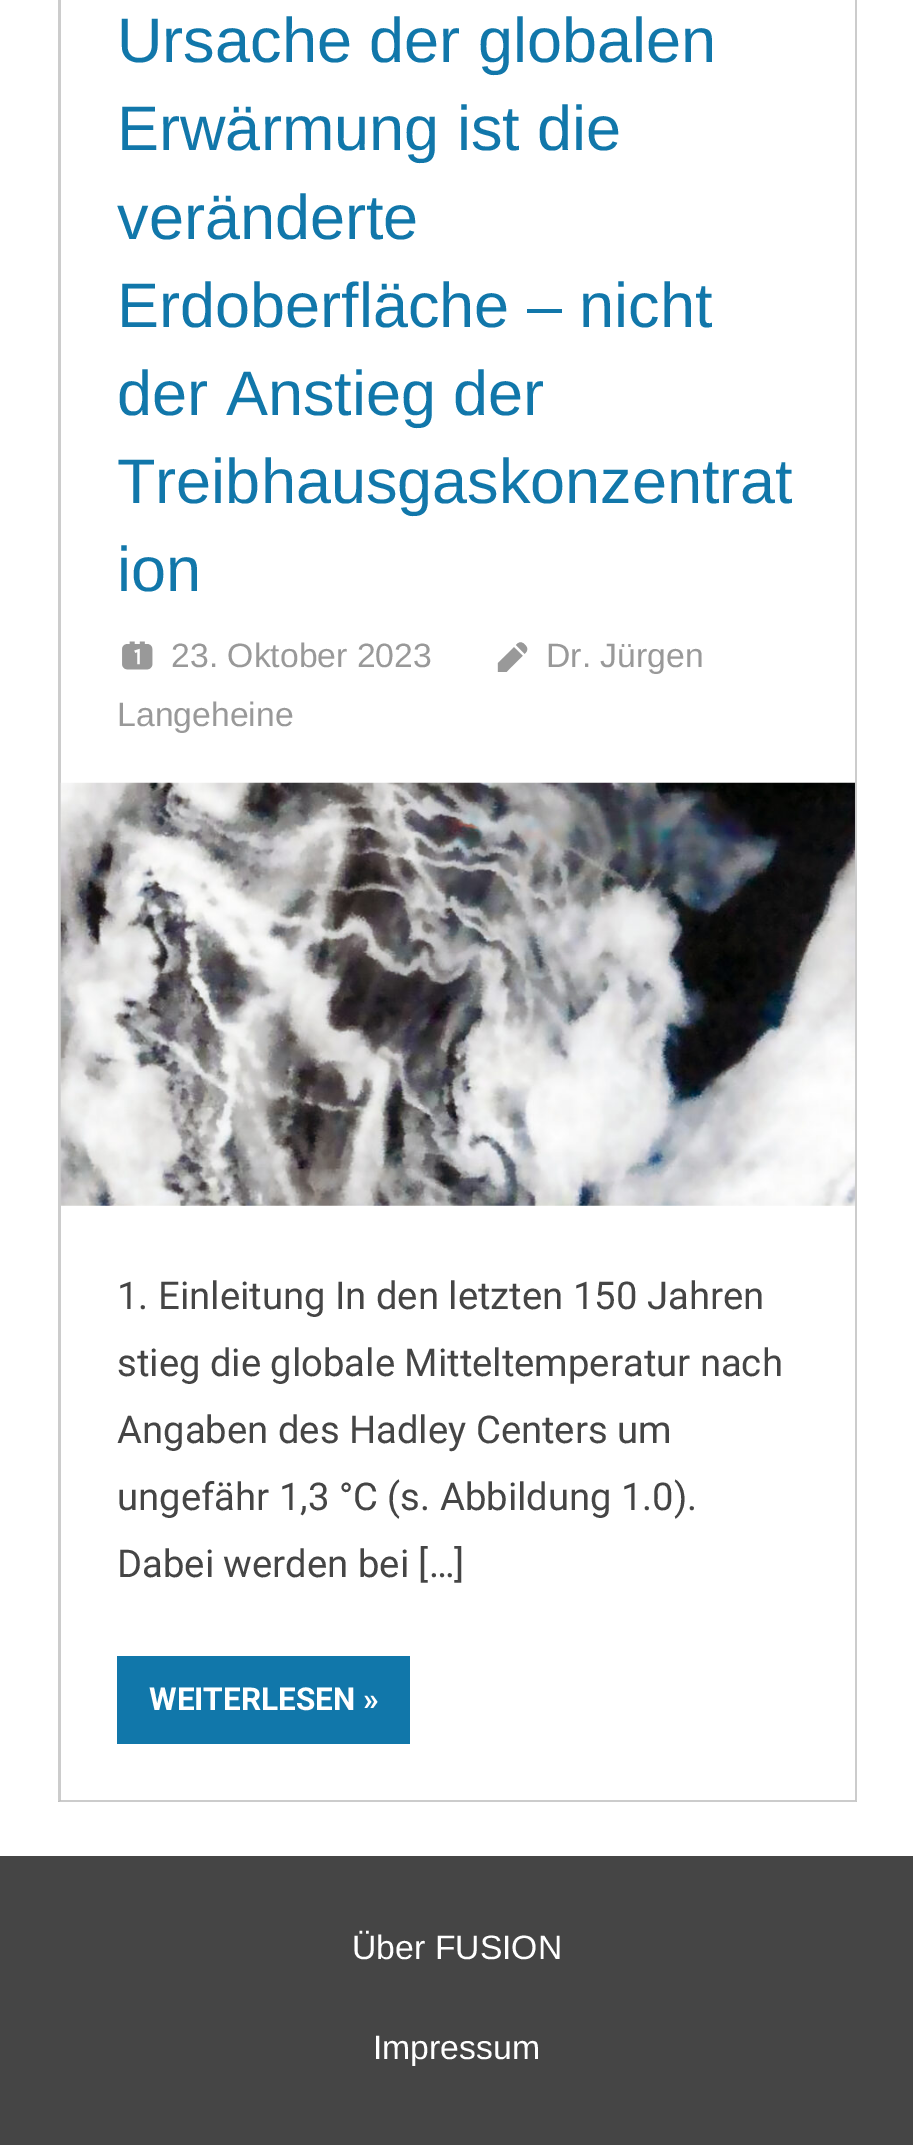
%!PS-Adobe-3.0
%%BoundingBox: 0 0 913 2145
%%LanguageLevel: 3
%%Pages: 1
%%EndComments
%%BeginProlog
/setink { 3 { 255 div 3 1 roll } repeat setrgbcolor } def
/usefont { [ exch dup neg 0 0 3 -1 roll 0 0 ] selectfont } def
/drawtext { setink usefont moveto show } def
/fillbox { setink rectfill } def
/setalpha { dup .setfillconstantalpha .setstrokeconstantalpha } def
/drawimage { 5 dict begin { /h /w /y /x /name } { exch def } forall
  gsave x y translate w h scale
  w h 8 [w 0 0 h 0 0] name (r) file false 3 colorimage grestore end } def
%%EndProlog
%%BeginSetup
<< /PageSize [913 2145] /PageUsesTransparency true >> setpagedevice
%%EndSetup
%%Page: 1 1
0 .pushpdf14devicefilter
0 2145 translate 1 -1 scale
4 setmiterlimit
0 0 913 2145 255 255 255 fillbox
204 204 204 setink
857 -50 moveto 857 1802 lineto 855 1800 lineto 855 -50 lineto closepath fill
0.2 setalpha
0 0 0 setink
857 1802 moveto 58 1802 lineto 61 1800 lineto 855 1800 lineto closepath fill
58 1802 moveto 58 -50 lineto 61 -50 lineto 61 1800 lineto closepath fill
1 setalpha
(Ursache der globalen) 117 62 /LiberationSans-Regular 63 17 119 170 drawtext
(Erwärmung ist die) 117 150 /LiberationSans-Regular 63 17 119 170 drawtext
(veränderte) 117 239 /LiberationSans-Regular 63 17 119 170 drawtext
(Erdoberfläche – nicht) 117 327 /LiberationSans-Regular 63 17 119 170 drawtext
(der Anstieg der) 117 415 /LiberationSans-Regular 63 17 119 170 drawtext
(Treibhausgaskonzentrat) 117 503 /LiberationSans-Regular 63 17 119 170 drawtext
(ion) 117 591 /LiberationSans-Regular 63 17 119 170 drawtext
(assets/img1.rgb) 122 641 31 29 drawimage
(23. Oktober 2023) 171 667 /LiberationSans-Regular 33.75 153 153 153 drawtext
(assets/img2.rgb) 497 642 31 30 drawimage
(Dr. Jürgen) 546 667 /LiberationSans-Regular 33.75 153 153 153 drawtext
(Langeheine) 117 726 /LiberationSans-Regular 33.75 153 153 153 drawtext
(assets/img3.rgb) 60 782 795 424 drawimage
(1. Einleitung In den letzten 150 Jahren) 117 1309 /Roboto-Regular 38.25 69 69 69 drawtext
(stieg die globale Mitteltemperatur nach) 117 1376 /Roboto-Regular 38.25 69 69 69 drawtext
(Angaben des Hadley Centers um) 117 1443 /Roboto-Regular 38.25 69 69 69 drawtext
(ungefähr 1,3 °C \(s. Abbildung 1.0\).) 117 1510 /Roboto-Regular 38.25 69 69 69 drawtext
(Dabei werden bei […]) 117 1577 /Roboto-Regular 38.25 69 69 69 drawtext
117 1656 293 88 17 119 170 fillbox
(WEITERLESEN ») 149 1710 /Roboto-Bold 31.5 255 255 255 drawtext
0 1856 913 289 69 69 69 fillbox
(Über FUSION) 352 1959 /LiberationSans-Regular 33.75 255 255 255 drawtext
(Impressum) 373 2059 /LiberationSans-Regular 33.75 255 255 255 drawtext
.poppdf14devicefilter showpage
%%EOF
